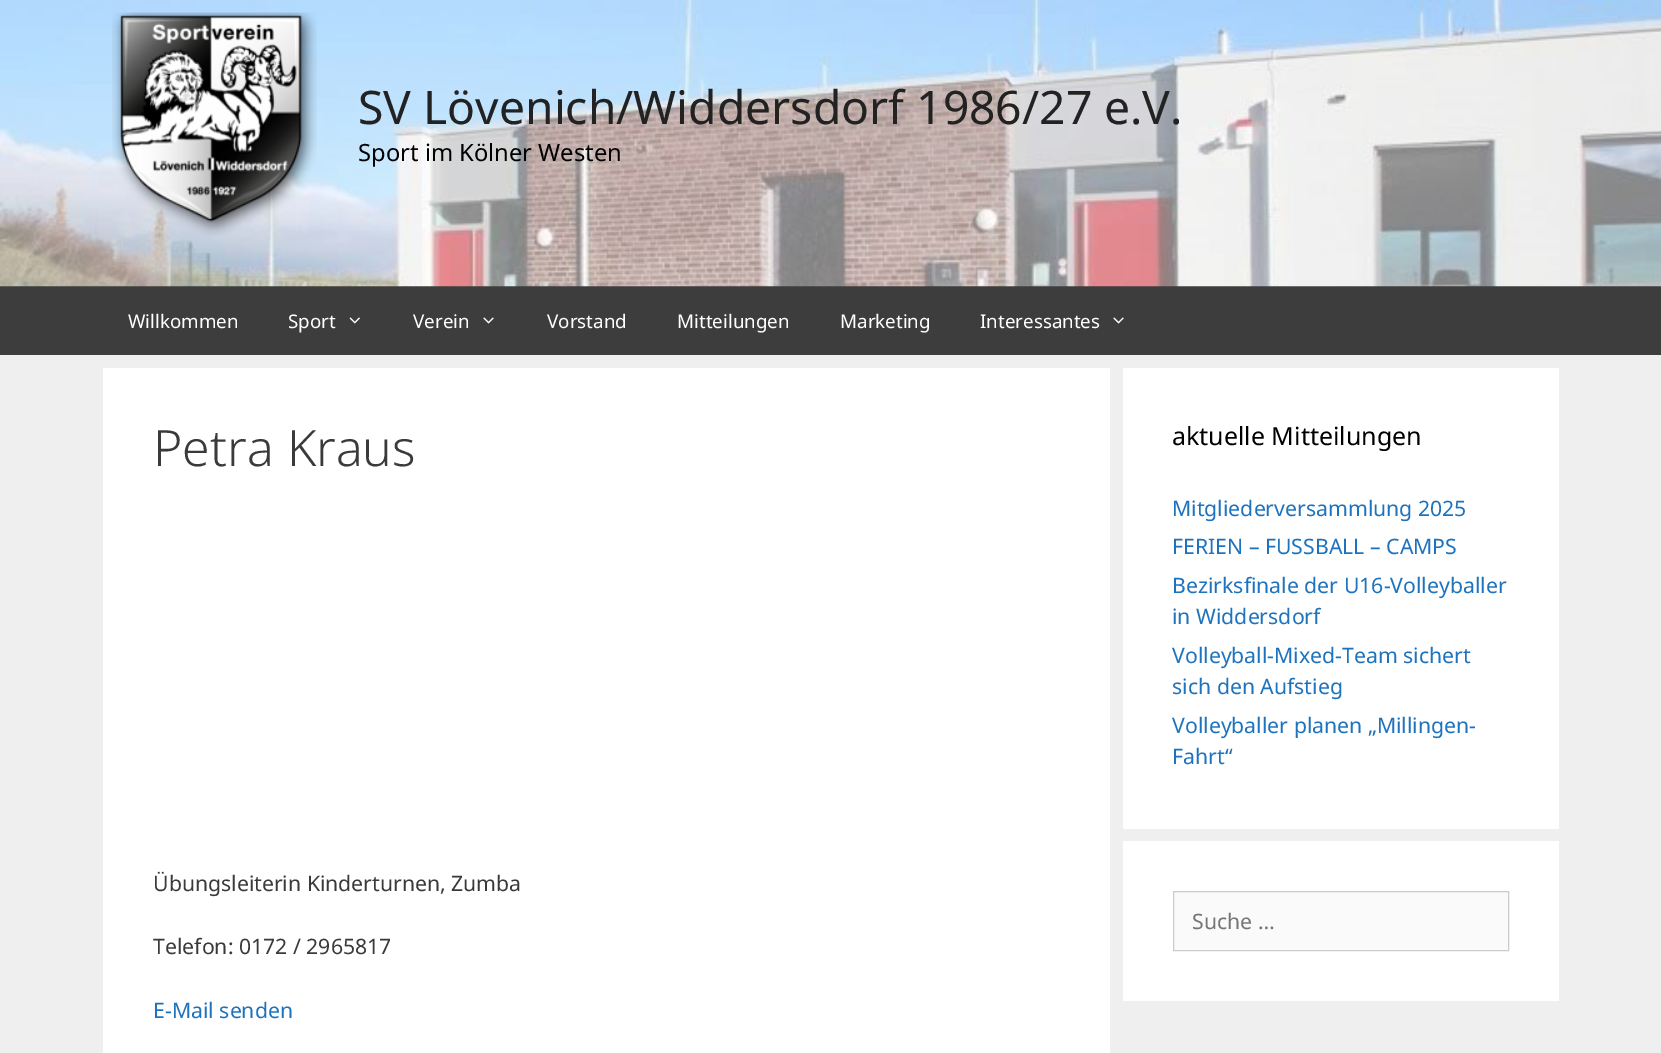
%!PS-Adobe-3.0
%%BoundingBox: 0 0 1661 1053
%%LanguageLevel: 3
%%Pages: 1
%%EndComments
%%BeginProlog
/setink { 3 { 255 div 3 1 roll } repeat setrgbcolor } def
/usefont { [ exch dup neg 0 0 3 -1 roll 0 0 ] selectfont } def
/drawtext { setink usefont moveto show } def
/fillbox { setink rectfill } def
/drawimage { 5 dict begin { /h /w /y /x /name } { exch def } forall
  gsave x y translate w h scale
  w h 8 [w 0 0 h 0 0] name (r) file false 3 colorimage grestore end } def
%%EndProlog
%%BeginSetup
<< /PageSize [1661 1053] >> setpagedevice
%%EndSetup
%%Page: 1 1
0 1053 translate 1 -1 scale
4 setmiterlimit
0 0 1661 1053 239 239 239 fillbox
0 286 1661 69 61 61 61 fillbox
(assets/img1.rgb) 0 0 1661 287 drawimage
(assets/img2.rgb) 112 12 205 224 drawimage
(SV Lövenich/Widdersdorf 1986/27 e.V.) 358 124 /NotoSans-Regular 46.25 34 34 34 drawtext
(Sport im Kölner Westen) 358 161 /NotoSans-Regular 23.75 0 0 0 drawtext
(Willkommen) 128 328 /NotoSans-Regular 18.75 255 255 255 drawtext
(Sport) 288 328 /NotoSans-Regular 18.75 255 255 255 drawtext
(assets/img3.rgb) 349 317 11 7 drawimage
(Verein) 413 328 /NotoSans-Regular 18.75 255 255 255 drawtext
(assets/img4.rgb) 483 317 11 7 drawimage
(Vorstand) 547 328 /NotoSans-Regular 18.75 255 255 255 drawtext
(Mitteilungen) 677 328 /NotoSans-Regular 18.75 255 255 255 drawtext
(Marketing) 840 328 /NotoSans-Regular 18.75 255 255 255 drawtext
(Interessantes) 980 328 /NotoSans-Regular 18.75 255 255 255 drawtext
(assets/img4.rgb) 1113 317 11 7 drawimage
103 368 1007 685 255 255 255 fillbox
(Petra Kraus) 153 466 /NotoSans-Light 50 58 58 58 drawtext
(Übungsleiterin Kinderturnen, Zumba) 153 891 /NotoSans-Regular 21.25 58 58 58 drawtext
(Telefon: 0172 / 2965817) 153 954 /NotoSans-Regular 21.25 58 58 58 drawtext
(E-Mail senden) 153 1018 /NotoSans-Regular 21.25 30 115 190 drawtext
1123 368 436 461 255 255 255 fillbox
(aktuelle Mitteilungen) 1172 445 /NotoSans-Regular 25 0 0 0 drawtext
(Mitgliederversammlung 2025) 1172 516 /NotoSans-Regular 21.25 30 115 190 drawtext
(FERIEN – FUSSBALL – CAMPS) 1172 554 /NotoSans-Regular 21.25 30 115 190 drawtext
(Bezirksfinale der U16-Volleyballer) 1172 593 /NotoSans-Regular 21.25 30 115 190 drawtext
(in Widdersdorf) 1172 624 /NotoSans-Regular 21.25 30 115 190 drawtext
(Volleyball-Mixed-Team sichert) 1172 663 /NotoSans-Regular 21.25 30 115 190 drawtext
(sich den Aufstieg) 1172 694 /NotoSans-Regular 21.25 30 115 190 drawtext
(Volleyballer planen „Millingen-) 1172 733 /NotoSans-Regular 21.25 30 115 190 drawtext
(Fahrt“) 1172 764 /NotoSans-Regular 21.25 30 115 190 drawtext
1123 841 436 160 255 255 255 fillbox
250 250 250 setink
1173.5 891.5 moveto 1508.5 891.5 lineto 1508.5 950.5 lineto 1173.5 950.5 lineto closepath gsave fill grestore
204 204 204 setink
stroke
(Suche …) 1192 929 /NotoSans-Regular 21.25 117 117 117 drawtext
showpage
%%EOF
